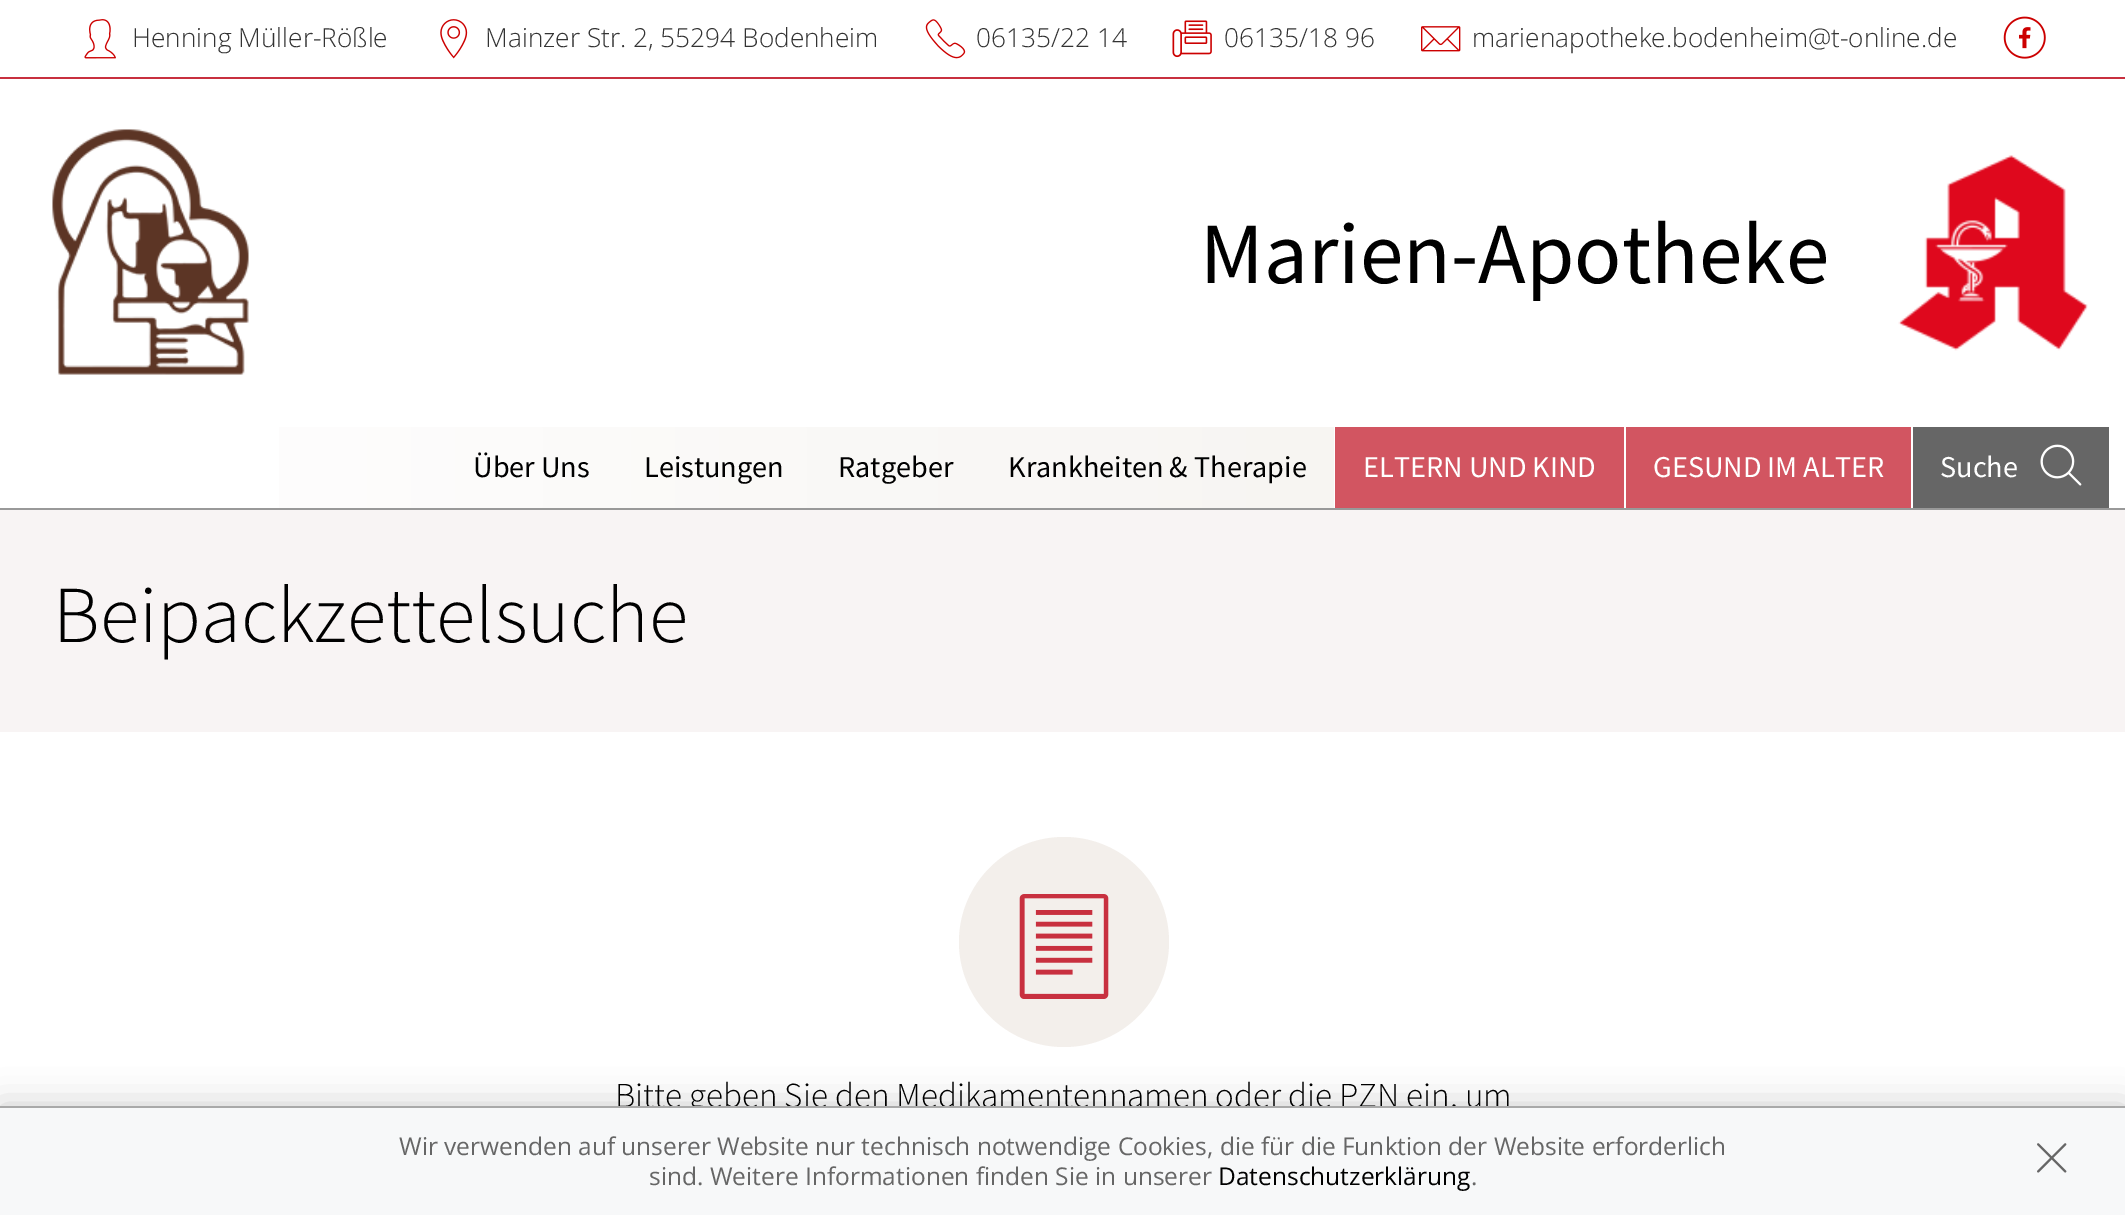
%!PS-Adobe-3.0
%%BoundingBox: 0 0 2125 1215
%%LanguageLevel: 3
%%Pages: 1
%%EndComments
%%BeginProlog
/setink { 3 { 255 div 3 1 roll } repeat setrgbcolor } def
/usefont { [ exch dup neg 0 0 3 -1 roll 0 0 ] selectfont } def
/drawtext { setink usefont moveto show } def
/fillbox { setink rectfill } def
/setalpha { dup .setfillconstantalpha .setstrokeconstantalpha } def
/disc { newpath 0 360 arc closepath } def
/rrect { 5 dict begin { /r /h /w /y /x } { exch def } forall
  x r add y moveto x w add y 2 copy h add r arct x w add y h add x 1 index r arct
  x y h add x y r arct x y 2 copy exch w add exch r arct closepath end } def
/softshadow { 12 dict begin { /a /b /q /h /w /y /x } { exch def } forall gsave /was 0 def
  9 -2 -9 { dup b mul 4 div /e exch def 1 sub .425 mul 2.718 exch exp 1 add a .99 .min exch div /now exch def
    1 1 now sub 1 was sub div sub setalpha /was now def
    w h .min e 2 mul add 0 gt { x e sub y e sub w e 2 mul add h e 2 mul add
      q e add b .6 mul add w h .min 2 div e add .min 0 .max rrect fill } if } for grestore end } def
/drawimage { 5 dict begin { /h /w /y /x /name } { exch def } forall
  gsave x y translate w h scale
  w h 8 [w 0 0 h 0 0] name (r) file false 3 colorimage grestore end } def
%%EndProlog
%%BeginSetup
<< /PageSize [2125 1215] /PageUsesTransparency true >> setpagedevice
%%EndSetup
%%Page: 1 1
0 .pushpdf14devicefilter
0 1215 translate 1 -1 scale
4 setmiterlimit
0 0 2125 1215 255 255 255 fillbox
0 77 2125 2 200 48 63 fillbox
(assets/img1.rgb) 84 19 32 40 drawimage
(Henning Müller-Rößle) 132 47 /OpenSans-Light 26.25 51 51 51 drawtext
(assets/img2.rgb) 440 19 28 40 drawimage
(Mainzer Str. 2, 55294 Bodenheim) 485 47 /OpenSans-Light 26.25 51 51 51 drawtext
(assets/img3.rgb) 925 19 41 40 drawimage
(06135/22 14) 976 47 /OpenSans-Light 26.25 51 51 51 drawtext
(assets/img4.rgb) 1172 20 40 38 drawimage
(06135/18 96) 1224 47 /OpenSans-Light 26.25 51 51 51 drawtext
(assets/img5.rgb) 1421 26 40 26 drawimage
(marienapotheke.bodenheim@t-online.de) 1472 47 /OpenSans-Light 26.25 51 51 51 drawtext
(assets/img6.rgb) 2003 16 43 43 drawimage
(assets/img7.rgb) 52 129 197 246 drawimage
(assets/img8.rgb) 1898 155 190 196 drawimage
(Marien-Apotheke) 1200 283 /SourceSansPro-Regular 87.5 0 0 0 drawtext
gsave 279 427 moveto 1334 427 lineto 1334 508 lineto 279 508 lineto closepath clip newpath
<< /ShadingType 2 /ColorSpace /DeviceRGB /Coords [18 467 2109 467] /Extend [true true] /Function << /FunctionType 2 /Domain [0 1] /C0 [1 1 1] /C1 [0.953 0.937 0.922] /N 1 >> >> shfill grestore
(Über Uns) 473 477 /SourceSansPro-Regular 30.25 0 0 0 drawtext
(Leistungen) 644 477 /SourceSansPro-Regular 30.25 0 0 0 drawtext
(Ratgeber) 838 477 /SourceSansPro-Regular 30.25 0 0 0 drawtext
(Krankheiten & Therapie) 1008 477 /SourceSansPro-Regular 30.25 0 0 0 drawtext
1335 427 289 81 210 85 97 fillbox
(ELTERN UND KIND) 1363 477 /SourceSansPro-Regular 30.25 255 255 255 drawtext
1626 427 285 81 210 85 97 fillbox
(GESUND IM ALTER) 1653 477 /SourceSansPro-Regular 30.25 255 255 255 drawtext
1913 427 196 81 102 102 102 fillbox
(Suche) 1940 477 /SourceSansPro-Regular 30.25 255 255 255 drawtext
(assets/img9.rgb) 2040 444 42 42 drawimage
0 510 2125 222 248 244 244 fillbox
0 508 2125 2 153 153 153 fillbox
(Beipackzettelsuche) 53 642 /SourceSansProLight-Light 80.75 0 0 0 drawtext
243 239 235 setink
1064 942 105 disc fill
(assets/img10.rgb) 1019 894 90 105 drawimage
(Bitte geben Sie den Medikamentennamen oder die PZN ein, um) 615 1107 /SourceSansProLight-Light 35 0 0 0 drawtext
0 1106 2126 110 0 17.5 0.2 softshadow
0 1108 2125 107 247 248 249 fillbox
0 1106 2125 2 169 169 169 fillbox
(Wir verwenden auf unserer Website nur technisch notwendige Cookies, die für die Funktion der Website erforderlich) 399 1155 /OpenSans-Regular 24.5 102 102 102 drawtext
(sind. Weitere Informationen finden Sie in unserer) 649 1185 /OpenSans-Regular 24.5 102 102 102 drawtext
(Datenschutzerklärung) 1218 1185 /OpenSans-Regular 24.5 0 0 0 drawtext
(.) 1471 1185 /OpenSans-Regular 24.5 102 102 102 drawtext
(assets/img11.rgb) 2037 1143 30 30 drawimage
.poppdf14devicefilter showpage
%%EOF
